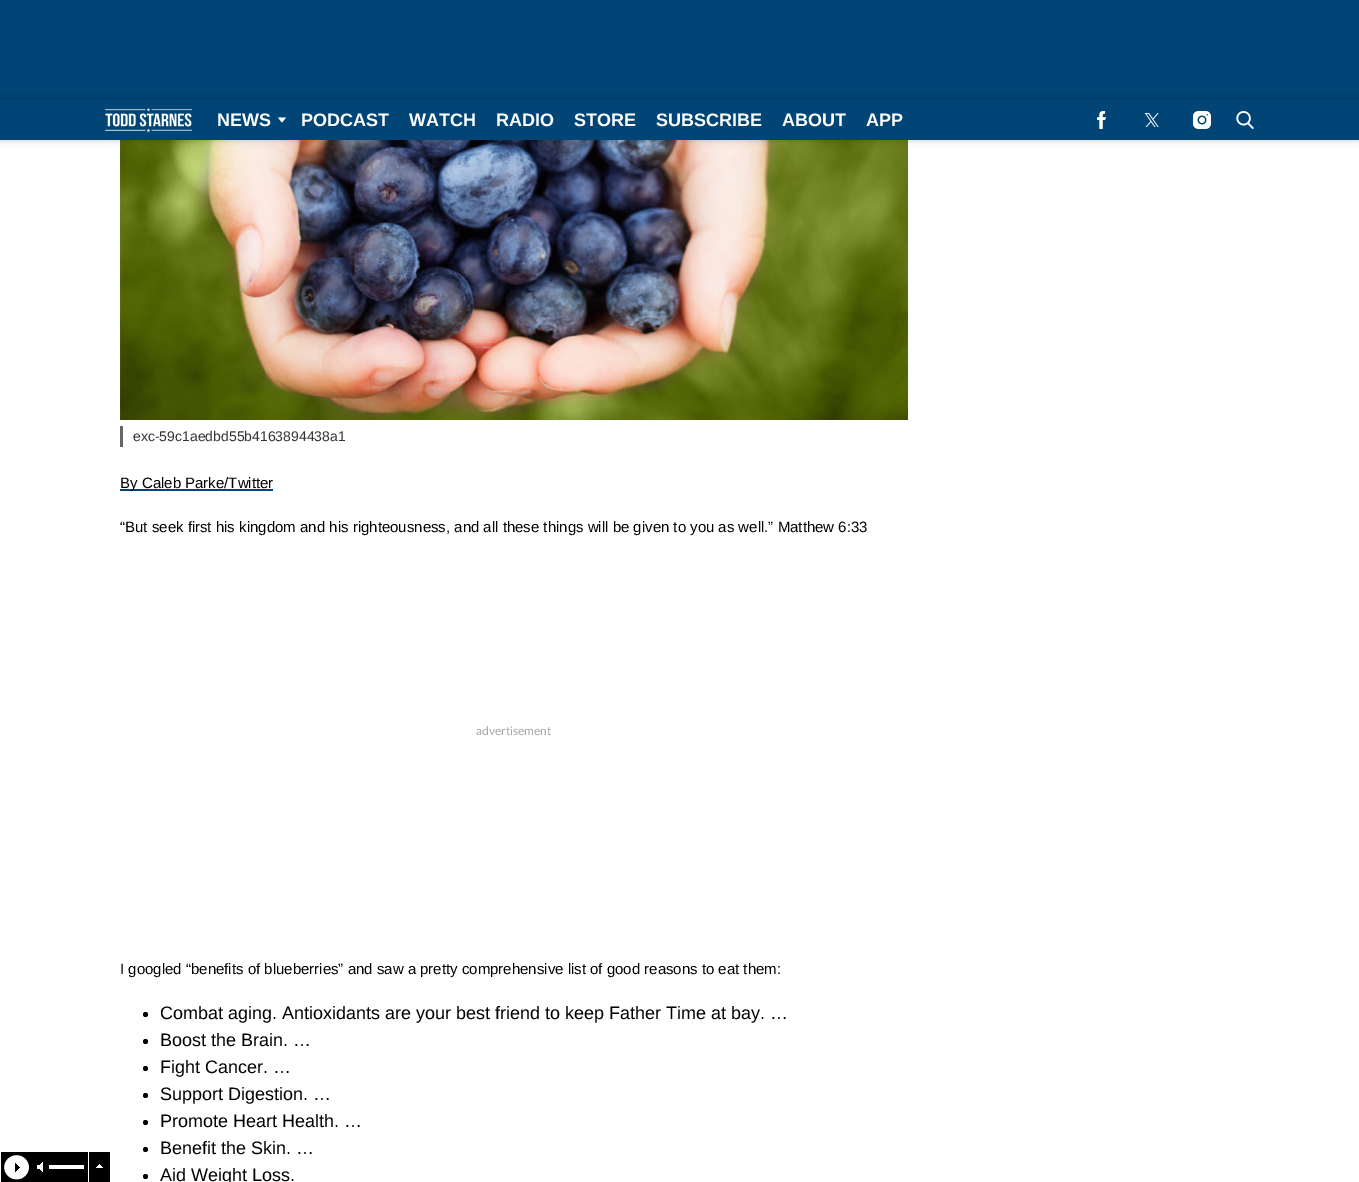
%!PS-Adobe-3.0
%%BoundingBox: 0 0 1359 1182
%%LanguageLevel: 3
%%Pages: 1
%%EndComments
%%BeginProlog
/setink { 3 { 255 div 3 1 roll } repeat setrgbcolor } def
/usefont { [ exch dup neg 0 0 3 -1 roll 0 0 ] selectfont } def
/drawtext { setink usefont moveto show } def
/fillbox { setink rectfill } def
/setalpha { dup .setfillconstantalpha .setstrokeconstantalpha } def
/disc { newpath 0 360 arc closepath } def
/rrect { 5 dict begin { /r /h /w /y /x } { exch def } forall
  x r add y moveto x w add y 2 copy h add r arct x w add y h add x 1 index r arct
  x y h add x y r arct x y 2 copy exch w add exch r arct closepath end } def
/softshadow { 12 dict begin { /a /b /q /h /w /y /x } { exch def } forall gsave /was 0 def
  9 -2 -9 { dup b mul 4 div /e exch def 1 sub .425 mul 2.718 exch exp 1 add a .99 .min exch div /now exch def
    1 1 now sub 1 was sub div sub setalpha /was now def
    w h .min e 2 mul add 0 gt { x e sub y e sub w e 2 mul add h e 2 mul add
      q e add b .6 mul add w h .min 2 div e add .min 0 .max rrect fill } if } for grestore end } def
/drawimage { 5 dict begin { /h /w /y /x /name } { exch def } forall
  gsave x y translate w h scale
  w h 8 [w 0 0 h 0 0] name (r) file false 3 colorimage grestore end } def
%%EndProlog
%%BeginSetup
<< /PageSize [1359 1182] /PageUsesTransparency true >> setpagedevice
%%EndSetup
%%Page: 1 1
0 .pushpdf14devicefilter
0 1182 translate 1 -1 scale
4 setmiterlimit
0 0 1359 1182 255 255 255 fillbox
0 0 1359 100 0 69 117 fillbox
(assets/img9.rgb) 120 140 788 280 drawimage
0 0 0 setink
0 100 1359 40 0 3.5 0.2 softshadow
0 100 1359 40 0 69 117 fillbox
(assets/img1.rgb) 105 107 87 26 drawimage
(NEWS) 217 126 /LiberationSans-Bold 18 255 255 255 drawtext
278 117.5 moveto 286 117.5 lineto 282 122.5 lineto closepath fill
(PODCAST) 301 126 /LiberationSans-Bold 18 255 255 255 drawtext
(WATCH) 409 126 /LiberationSans-Bold 18 255 255 255 drawtext
(RADIO) 496 126 /LiberationSans-Bold 18 255 255 255 drawtext
(STORE) 574 126 /LiberationSans-Bold 18 255 255 255 drawtext
(SUBSCRIBE) 656 126 /LiberationSans-Bold 18 255 255 255 drawtext
(ABOUT) 782 126 /LiberationSans-Bold 18 255 255 255 drawtext
(APP) 866 126 /LiberationSans-Bold 18 255 255 255 drawtext
(assets/img2.rgb) 1097 111 9 18 drawimage
(assets/img3.rgb) 1144 113 15 14 drawimage
(assets/img4.rgb) 1193 111 18 18 drawimage
(assets/img5.rgb) 1236 111 18 18 drawimage
1 1152 87 30 0 0 0 fillbox
(assets/img6.rgb) 4 1155 25 25 drawimage
(assets/img7.rgb) 37 1162 6 10 drawimage
49 1165 35 4 255 255 255 fillbox
89 1152 21 30 0 0 0 fillbox
(assets/img8.rgb) 96 1164 7 4 drawimage
120 426 3 21 102 102 102 fillbox
(exc-59c1aedbd55b4163894438a1) 133 441 /LiberationSans-Regular 14 51 51 51 drawtext
120 489 153 2 0 69 117 fillbox
(By Caleb Parke/Twitter) 120 488 /LiberationSans-Regular 15 0 0 0 drawtext
(“But seek first his kingdom and his righteousness, and all these things will be given to you as well.” Matthew 6:33) 120 532 /LiberationSans-Regular 15 0 0 0 drawtext
(advertisement) 476 735 /Lato-Regular 12 167 167 167 drawtext
(I googled “benefits of blueberries” and saw a pretty comprehensive list of good reasons to eat them:) 120 974 /LiberationSans-Regular 15 0 0 0 drawtext
145.5 1014.5 2.5 disc fill
(Combat aging. Antioxidants are your best friend to keep Father Time at bay. …) 160 1019 /LiberationSans-Regular 18 0 0 0 drawtext
145.5 1041.5 2.5 disc fill
(Boost the Brain. …) 160 1046 /LiberationSans-Regular 18 0 0 0 drawtext
145.5 1068.5 2.5 disc fill
(Fight Cancer. …) 160 1073 /LiberationSans-Regular 18 0 0 0 drawtext
145.5 1095.5 2.5 disc fill
(Support Digestion. …) 160 1100 /LiberationSans-Regular 18 0 0 0 drawtext
145.5 1122.5 2.5 disc fill
(Promote Heart Health. …) 160 1127 /LiberationSans-Regular 18 0 0 0 drawtext
145.5 1149.5 2.5 disc fill
(Benefit the Skin. …) 160 1154 /LiberationSans-Regular 18 0 0 0 drawtext
145.5 1176.5 2.5 disc fill
(Aid Weight Loss.) 160 1181 /LiberationSans-Regular 18 0 0 0 drawtext
.poppdf14devicefilter showpage
%%EOF
